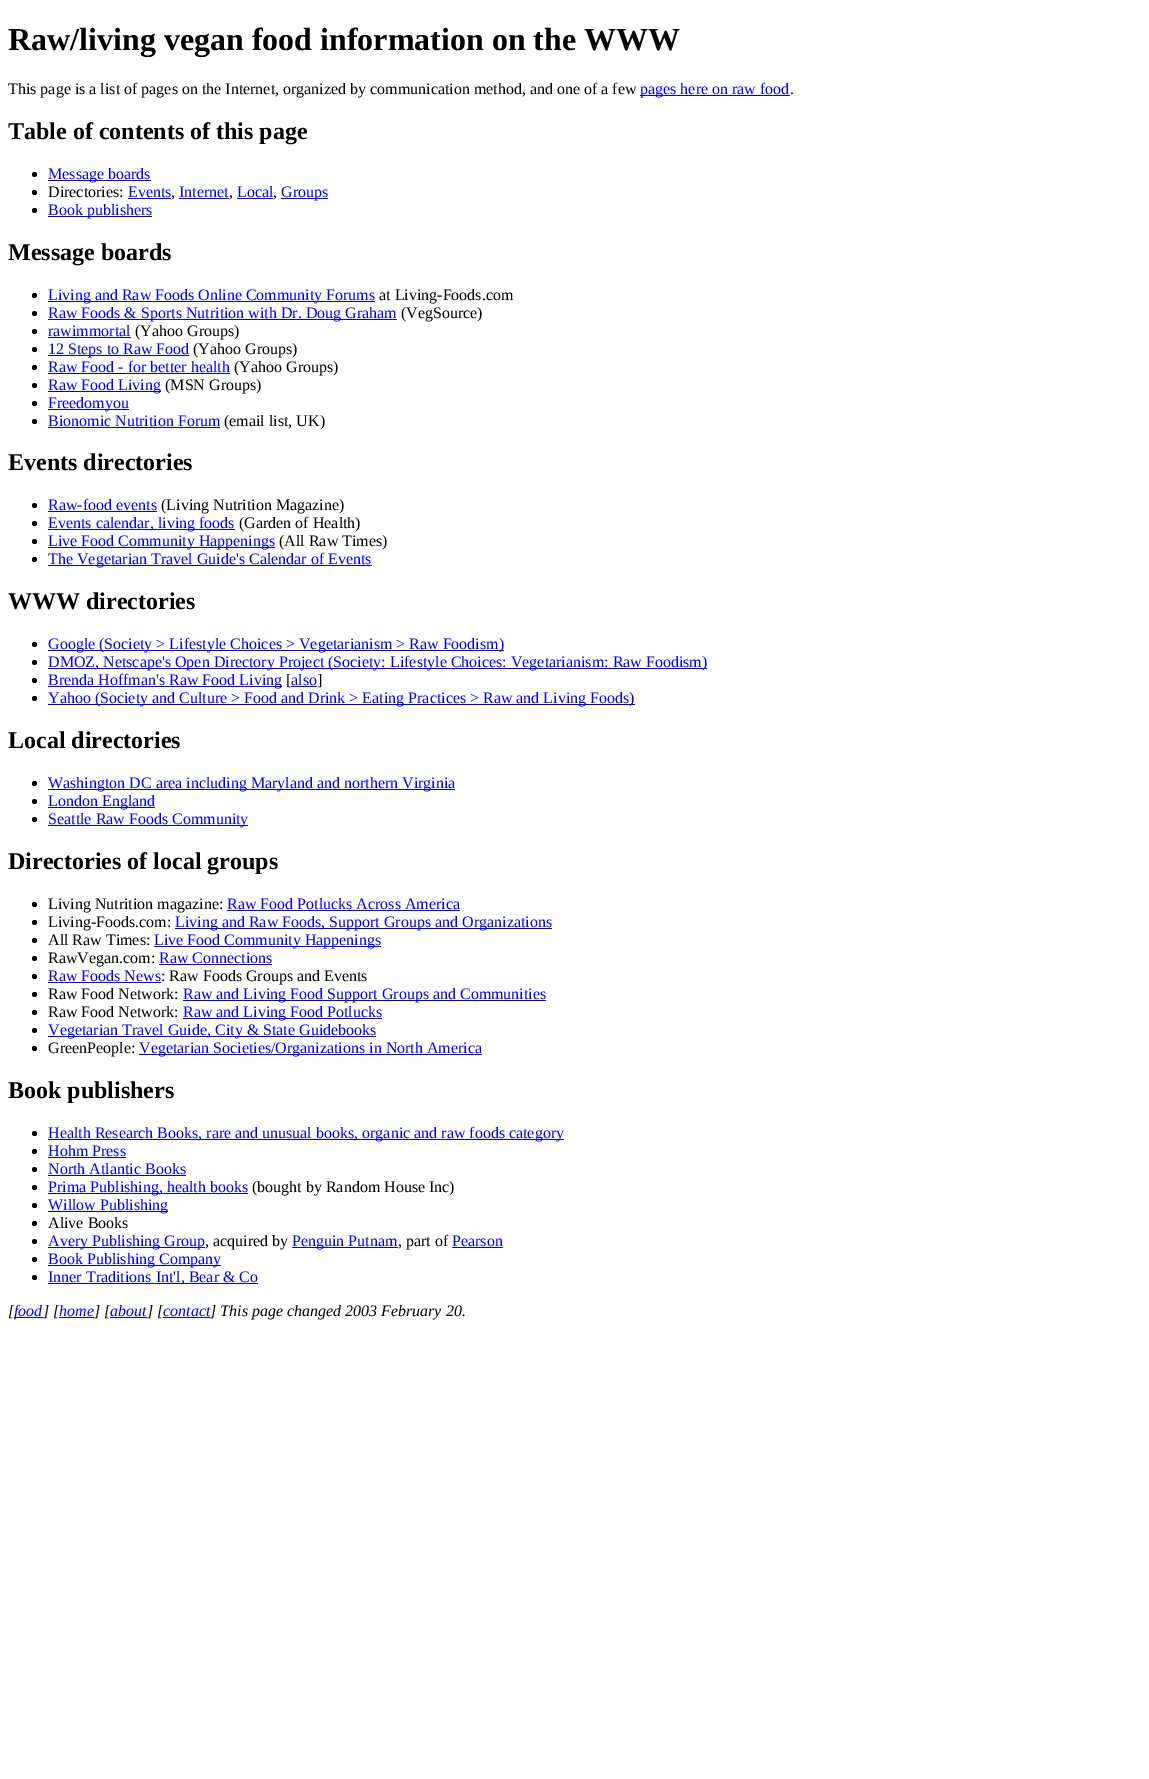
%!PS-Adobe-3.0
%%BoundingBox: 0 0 1149 1779
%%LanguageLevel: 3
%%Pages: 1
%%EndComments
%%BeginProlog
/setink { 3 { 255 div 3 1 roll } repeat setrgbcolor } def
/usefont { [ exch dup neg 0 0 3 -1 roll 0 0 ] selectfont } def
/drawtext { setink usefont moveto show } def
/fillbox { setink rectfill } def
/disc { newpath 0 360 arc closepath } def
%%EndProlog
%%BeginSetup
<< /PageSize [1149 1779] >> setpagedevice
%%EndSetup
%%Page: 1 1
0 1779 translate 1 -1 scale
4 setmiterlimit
0 0 1149 1779 255 255 255 fillbox
(Raw/living vegan food information on the WWW) 8 50 /LiberationSerif-Bold 32 0 0 0 drawtext
(This page is a list of pages on the Internet, organized by communication method, and one of a few) 8 94 /LiberationSerif-Regular 16 0 0 0 drawtext
640 95 150 1 0 0 238 fillbox
(pages here on raw food) 640 94 /LiberationSerif-Regular 16 0 0 238 drawtext
(.) 790 94 /LiberationSerif-Regular 16 0 0 0 drawtext
(Table of contents of this page) 8 139 /LiberationSerif-Bold 24 0 0 0 drawtext
34.5 174.5 2.5 disc fill
48 180 103 1 0 0 238 fillbox
(Message boards) 48 179 /LiberationSerif-Regular 16 0 0 238 drawtext
0 0 0 setink
34.5 192.5 2.5 disc fill
(Directories:) 48 197 /LiberationSerif-Regular 16 0 0 0 drawtext
(Events) 128 197 /LiberationSerif-Regular 16 0 0 238 drawtext
128 198 43 1 0 0 238 fillbox
(Internet) 179 197 /LiberationSerif-Regular 16 0 0 238 drawtext
179 198 50 1 0 0 238 fillbox
(Local) 237 197 /LiberationSerif-Regular 16 0 0 238 drawtext
237 198 36 1 0 0 238 fillbox
281 198 47 1 0 0 238 fillbox
(Groups) 281 197 /LiberationSerif-Regular 16 0 0 238 drawtext
(,) 171 197 /LiberationSerif-Regular 16 0 0 0 drawtext
(,) 229 197 /LiberationSerif-Regular 16 0 0 0 drawtext
(,) 273 197 /LiberationSerif-Regular 16 0 0 0 drawtext
34.5 210.5 2.5 disc fill
48 216 104 1 0 0 238 fillbox
(Book publishers) 48 215 /LiberationSerif-Regular 16 0 0 238 drawtext
(Message boards) 8 260 /LiberationSerif-Bold 24 0 0 0 drawtext
34.5 295.5 2.5 disc fill
48 301 327 1 0 0 238 fillbox
(Living and Raw Foods Online Community Forums) 48 300 /LiberationSerif-Regular 16 0 0 238 drawtext
(at Living-Foods.com) 379 300 /LiberationSerif-Regular 16 0 0 0 drawtext
34.5 313.5 2.5 disc fill
48 319 349 1 0 0 238 fillbox
(Raw Foods & Sports Nutrition with Dr. Doug Graham) 48 318 /LiberationSerif-Regular 16 0 0 238 drawtext
(\(VegSource\)) 401 318 /LiberationSerif-Regular 16 0 0 0 drawtext
34.5 331.5 2.5 disc fill
(rawimmortal) 48 336 /LiberationSerif-Regular 16 0 0 238 drawtext
48 337 83 1 0 0 238 fillbox
(\(Yahoo Groups\)) 135 336 /LiberationSerif-Regular 16 0 0 0 drawtext
34.5 349.5 2.5 disc fill
48 355 141 1 0 0 238 fillbox
(12 Steps to Raw Food) 48 354 /LiberationSerif-Regular 16 0 0 238 drawtext
(\(Yahoo Groups\)) 193 354 /LiberationSerif-Regular 16 0 0 0 drawtext
34.5 367.5 2.5 disc fill
(Raw Food - for better health) 48 372 /LiberationSerif-Regular 16 0 0 238 drawtext
48 373 182 1 0 0 238 fillbox
(\(Yahoo Groups\)) 234 372 /LiberationSerif-Regular 16 0 0 0 drawtext
34.5 385.5 2.5 disc fill
48 391 113 1 0 0 238 fillbox
(Raw Food Living) 48 390 /LiberationSerif-Regular 16 0 0 238 drawtext
(\(MSN Groups\)) 165 390 /LiberationSerif-Regular 16 0 0 0 drawtext
34.5 403.5 2.5 disc fill
48 409 81 1 0 0 238 fillbox
(Freedomyou) 48 408 /LiberationSerif-Regular 16 0 0 238 drawtext
0 0 0 setink
34.5 421.5 2.5 disc fill
(Bionomic Nutrition Forum) 48 426 /LiberationSerif-Regular 16 0 0 238 drawtext
48 427 172 1 0 0 238 fillbox
(\(email list, UK\)) 224 426 /LiberationSerif-Regular 16 0 0 0 drawtext
(Events directories) 8 470 /LiberationSerif-Bold 24 0 0 0 drawtext
34.5 505.5 2.5 disc fill
(Raw-food events) 48 510 /LiberationSerif-Regular 16 0 0 238 drawtext
48 511 109 1 0 0 238 fillbox
(\(Living Nutrition Magazine\)) 161 510 /LiberationSerif-Regular 16 0 0 0 drawtext
34.5 523.5 2.5 disc fill
48 529 187 1 0 0 238 fillbox
(Events calendar, living foods) 48 528 /LiberationSerif-Regular 16 0 0 238 drawtext
(\(Garden of Health\)) 239 528 /LiberationSerif-Regular 16 0 0 0 drawtext
34.5 541.5 2.5 disc fill
48 547 227 1 0 0 238 fillbox
(Live Food Community Happenings) 48 546 /LiberationSerif-Regular 16 0 0 238 drawtext
(\(All Raw Times\)) 279 546 /LiberationSerif-Regular 16 0 0 0 drawtext
34.5 559.5 2.5 disc fill
48 565 324 1 0 0 238 fillbox
(The Vegetarian Travel Guide's Calendar of Events) 48 564 /LiberationSerif-Regular 16 0 0 238 drawtext
(WWW directories) 8 609 /LiberationSerif-Bold 24 0 0 0 drawtext
34.5 644.5 2.5 disc fill
48 650 456 1 0 0 238 fillbox
(Google \(Society > Lifestyle Choices > Vegetarianism > Raw Foodism\)) 48 649 /LiberationSerif-Regular 16 0 0 238 drawtext
0 0 0 setink
34.5 662.5 2.5 disc fill
48 668 659 1 0 0 238 fillbox
(DMOZ, Netscape's Open Directory Project \(Society: Lifestyle Choices: Vegetarianism: Raw Foodism\)) 48 667 /LiberationSerif-Regular 16 0 0 238 drawtext
0 0 0 setink
34.5 680.5 2.5 disc fill
48 686 234 1 0 0 238 fillbox
(Brenda Hoffman's Raw Food Living) 48 685 /LiberationSerif-Regular 16 0 0 238 drawtext
([) 286 685 /LiberationSerif-Regular 16 0 0 0 drawtext
(also) 291 685 /LiberationSerif-Regular 16 0 0 238 drawtext
291 686 26 1 0 0 238 fillbox
(]) 317 685 /LiberationSerif-Regular 16 0 0 0 drawtext
34.5 698.5 2.5 disc fill
48 704 587 1 0 0 238 fillbox
(Yahoo \(Society and Culture > Food and Drink > Eating Practices > Raw and Living Foods\)) 48 703 /LiberationSerif-Regular 16 0 0 238 drawtext
(Local directories) 8 748 /LiberationSerif-Bold 24 0 0 0 drawtext
34.5 783.5 2.5 disc fill
48 789 407 1 0 0 238 fillbox
(Washington DC area including Maryland and northern Virginia) 48 788 /LiberationSerif-Regular 16 0 0 238 drawtext
0 0 0 setink
34.5 801.5 2.5 disc fill
48 807 107 1 0 0 238 fillbox
(London England) 48 806 /LiberationSerif-Regular 16 0 0 238 drawtext
0 0 0 setink
34.5 819.5 2.5 disc fill
48 825 200 1 0 0 238 fillbox
(Seattle Raw Foods Community) 48 824 /LiberationSerif-Regular 16 0 0 238 drawtext
(Directories of local groups) 8 869 /LiberationSerif-Bold 24 0 0 0 drawtext
34.5 904.5 2.5 disc fill
(Living Nutrition magazine:) 48 909 /LiberationSerif-Regular 16 0 0 0 drawtext
(Raw Food Potlucks Across America) 227 909 /LiberationSerif-Regular 16 0 0 238 drawtext
227 910 233 1 0 0 238 fillbox
0 0 0 setink
34.5 922.5 2.5 disc fill
(Living-Foods.com:) 48 927 /LiberationSerif-Regular 16 0 0 0 drawtext
175 928 377 1 0 0 238 fillbox
(Living and Raw Foods, Support Groups and Organizations) 175 927 /LiberationSerif-Regular 16 0 0 238 drawtext
0 0 0 setink
34.5 940.5 2.5 disc fill
(All Raw Times:) 48 945 /LiberationSerif-Regular 16 0 0 0 drawtext
154 946 227 1 0 0 238 fillbox
(Live Food Community Happenings) 154 945 /LiberationSerif-Regular 16 0 0 238 drawtext
0 0 0 setink
34.5 958.5 2.5 disc fill
(RawVegan.com:) 48 963 /LiberationSerif-Regular 16 0 0 0 drawtext
(Raw Connections) 159 963 /LiberationSerif-Regular 16 0 0 238 drawtext
159 964 113 1 0 0 238 fillbox
0 0 0 setink
34.5 976.5 2.5 disc fill
(Raw Foods News) 48 981 /LiberationSerif-Regular 16 0 0 238 drawtext
48 982 113 1 0 0 238 fillbox
(: Raw Foods Groups and Events) 161 981 /LiberationSerif-Regular 16 0 0 0 drawtext
34.5 994.5 2.5 disc fill
(Raw Food Network:) 48 999 /LiberationSerif-Regular 16 0 0 0 drawtext
183 1000 363 1 0 0 238 fillbox
(Raw and Living Food Support Groups and Communities) 183 999 /LiberationSerif-Regular 16 0 0 238 drawtext
0 0 0 setink
34.5 1012.5 2.5 disc fill
(Raw Food Network:) 48 1017 /LiberationSerif-Regular 16 0 0 0 drawtext
183 1018 199 1 0 0 238 fillbox
(Raw and Living Food Potlucks) 183 1017 /LiberationSerif-Regular 16 0 0 238 drawtext
0 0 0 setink
34.5 1030.5 2.5 disc fill
48 1036 328 1 0 0 238 fillbox
(Vegetarian Travel Guide, City & State Guidebooks) 48 1035 /LiberationSerif-Regular 16 0 0 238 drawtext
0 0 0 setink
34.5 1048.5 2.5 disc fill
(GreenPeople:) 48 1053 /LiberationSerif-Regular 16 0 0 0 drawtext
139 1054 343 1 0 0 238 fillbox
(Vegetarian Societies/Organizations in North America) 139 1053 /LiberationSerif-Regular 16 0 0 238 drawtext
(Book publishers) 8 1098 /LiberationSerif-Bold 24 0 0 0 drawtext
34.5 1133.5 2.5 disc fill
48 1139 516 1 0 0 238 fillbox
(Health Research Books, rare and unusual books, organic and raw foods category) 48 1138 /LiberationSerif-Regular 16 0 0 238 drawtext
0 0 0 setink
34.5 1151.5 2.5 disc fill
(Hohm Press) 48 1156 /LiberationSerif-Regular 16 0 0 238 drawtext
48 1157 78 1 0 0 238 fillbox
0 0 0 setink
34.5 1169.5 2.5 disc fill
(North Atlantic Books) 48 1174 /LiberationSerif-Regular 16 0 0 238 drawtext
48 1175 138 1 0 0 238 fillbox
0 0 0 setink
34.5 1187.5 2.5 disc fill
48 1193 200 1 0 0 238 fillbox
(Prima Publishing, health books) 48 1192 /LiberationSerif-Regular 16 0 0 238 drawtext
(\(bought by Random House Inc\)) 252 1192 /LiberationSerif-Regular 16 0 0 0 drawtext
34.5 1205.5 2.5 disc fill
48 1211 120 1 0 0 238 fillbox
(Willow Publishing) 48 1210 /LiberationSerif-Regular 16 0 0 238 drawtext
0 0 0 setink
34.5 1223.5 2.5 disc fill
(Alive Books) 48 1228 /LiberationSerif-Regular 16 0 0 0 drawtext
34.5 1241.5 2.5 disc fill
48 1247 157 1 0 0 238 fillbox
(Avery Publishing Group) 48 1246 /LiberationSerif-Regular 16 0 0 238 drawtext
(, acquired by) 205 1246 /LiberationSerif-Regular 16 0 0 0 drawtext
292 1247 106 1 0 0 238 fillbox
(Penguin Putnam) 292 1246 /LiberationSerif-Regular 16 0 0 238 drawtext
(, part of) 398 1246 /LiberationSerif-Regular 16 0 0 0 drawtext
(Pearson) 452 1246 /LiberationSerif-Regular 16 0 0 238 drawtext
452 1247 51 1 0 0 238 fillbox
0 0 0 setink
34.5 1259.5 2.5 disc fill
48 1265 173 1 0 0 238 fillbox
(Book Publishing Company) 48 1264 /LiberationSerif-Regular 16 0 0 238 drawtext
0 0 0 setink
34.5 1277.5 2.5 disc fill
48 1283 210 1 0 0 238 fillbox
(Inner Traditions Int'l, Bear & Co) 48 1282 /LiberationSerif-Regular 16 0 0 238 drawtext
([) 8 1316 /LiberationSerif-Italic 16 0 0 0 drawtext
14 1317 29 1 0 0 238 fillbox
(food) 14 1316 /LiberationSerif-Italic 16 0 0 238 drawtext
(] [) 43 1316 /LiberationSerif-Italic 16 0 0 0 drawtext
(home) 59 1316 /LiberationSerif-Italic 16 0 0 238 drawtext
59 1317 35 1 0 0 238 fillbox
(] [) 94 1316 /LiberationSerif-Italic 16 0 0 0 drawtext
(about) 110 1316 /LiberationSerif-Italic 16 0 0 238 drawtext
110 1317 37 1 0 0 238 fillbox
(] [) 147 1316 /LiberationSerif-Italic 16 0 0 0 drawtext
(contact) 163 1316 /LiberationSerif-Italic 16 0 0 238 drawtext
163 1317 47 1 0 0 238 fillbox
(] This page changed 2003 February 20.) 210 1316 /LiberationSerif-Italic 16 0 0 0 drawtext
showpage
%%EOF
